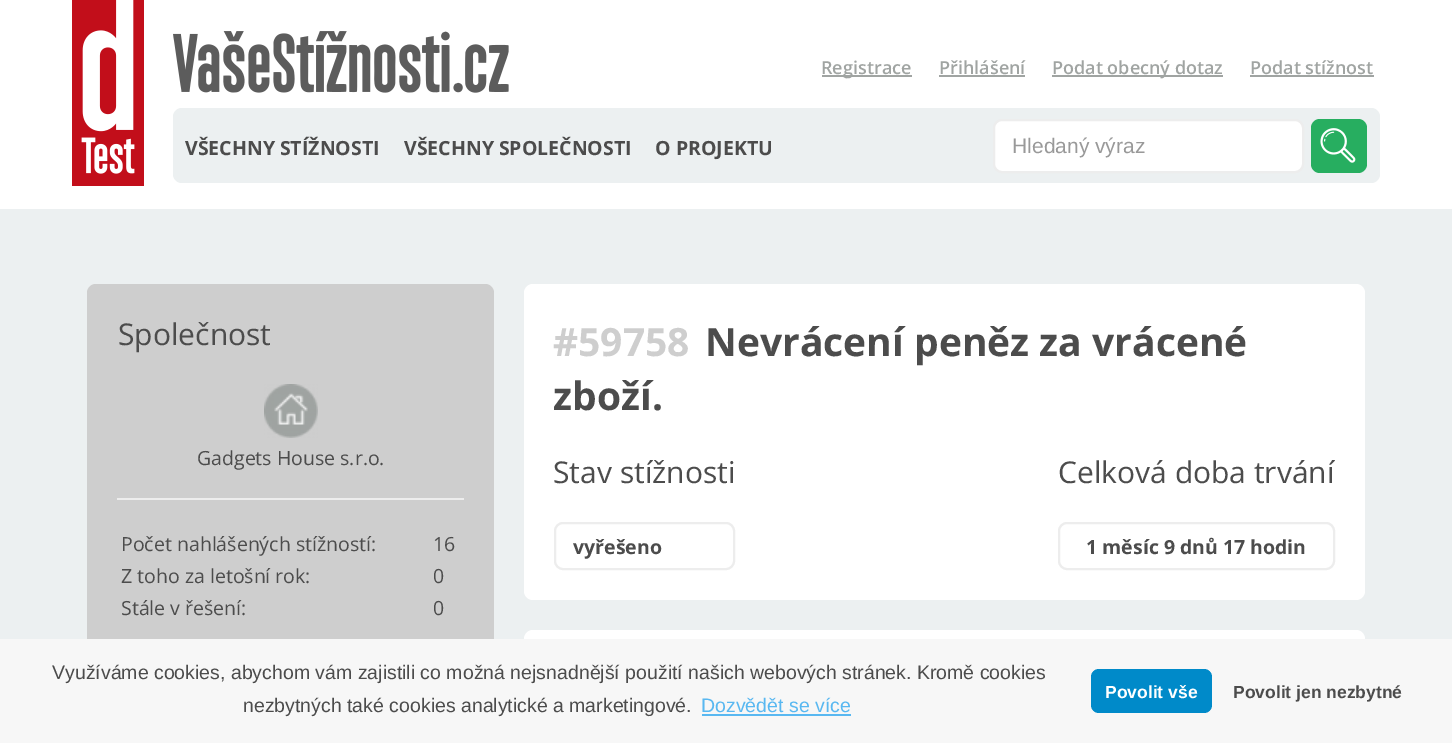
%!PS-Adobe-3.0
%%BoundingBox: 0 0 1452 743
%%LanguageLevel: 3
%%Pages: 1
%%EndComments
%%BeginProlog
/setink { 3 { 255 div 3 1 roll } repeat setrgbcolor } def
/usefont { [ exch dup neg 0 0 3 -1 roll 0 0 ] selectfont } def
/drawtext { setink usefont moveto show } def
/fillbox { setink rectfill } def
/rrect { 5 dict begin { /r /h /w /y /x } { exch def } forall
  x r add y moveto x w add y 2 copy h add r arct x w add y h add x 1 index r arct
  x y h add x y r arct x y 2 copy exch w add exch r arct closepath end } def
/drawimage { 5 dict begin { /h /w /y /x /name } { exch def } forall
  gsave x y translate w h scale
  w h 8 [w 0 0 h 0 0] name (r) file false 3 colorimage grestore end } def
%%EndProlog
%%BeginSetup
<< /PageSize [1452 743] >> setpagedevice
%%EndSetup
%%Page: 1 1
0 743 translate 1 -1 scale
4 setmiterlimit
0 0 1452 743 236 240 241 fillbox
0 0 1452 209 255 255 255 fillbox
(assets/img1.rgb) 72 0 72 186 drawimage
(assets/img2.rgb) 173 31 336 62 drawimage
822 75 90 2 160 164 162 fillbox
(Registrace) 821 74 /OpenSans-SemiBold 18 160 164 162 drawtext
(Přihlášení) 939 74 /OpenSans-SemiBold 18 160 164 162 drawtext
939 75 86 2 160 164 162 fillbox
1052 75 171 2 160 164 162 fillbox
(Podat obecný dotaz) 1052 74 /OpenSans-SemiBold 18 160 164 162 drawtext
(Podat stížnost) 1250 74 /OpenSans-SemiBold 18 160 164 162 drawtext
1250 75 124 2 160 164 162 fillbox
236 240 241 setink
173 108 1207 75 9 rrect fill
(VŠECHNY STÍŽNOSTI) 185 155 /OpenSans-Bold 19.5 76 76 76 drawtext
(VŠECHNY SPOLEČNOSTI) 404 155 /OpenSans-Bold 19.5 76 76 76 drawtext
(O PROJEKTU) 655 155 /OpenSans-Bold 19.5 76 76 76 drawtext
255 255 255 setink
994 120 309 52 8 rrect gsave fill grestore
237 237 237 setink
2 setlinewidth
stroke
(Hledaný výraz) 1012 153 /LiberationSans-Regular 21 153 153 153 drawtext
39 174 96 setink
1311 119 56 54 9 rrect fill
(assets/img3.rgb) 1320 128 36 35 drawimage
206 206 206 setink
87 284 407 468 9 rrect fill
(Společnost) 118 345 /OpenSans-Regular 30 76 76 76 drawtext
(assets/img4.rgb) 264 384 54 54 drawimage
(Gadgets House s.r.o.) 197 465 /OpenSans-Regular 19.5 76 76 76 drawtext
117 498 347 2 237 237 237 fillbox
(Počet nahlášených stížností:) 121 551 /OpenSans-Regular 19.5 76 76 76 drawtext
(16) 433 551 /OpenSans-Regular 19.5 76 76 76 drawtext
(Z toho za letošní rok:) 121 583 /OpenSans-Regular 19.5 76 76 76 drawtext
(0) 433 583 /OpenSans-Regular 19.5 76 76 76 drawtext
(Stále v řešení:) 121 615 /OpenSans-Regular 19.5 76 76 76 drawtext
(0) 433 615 /OpenSans-Regular 19.5 76 76 76 drawtext
255 255 255 setink
524 284 841 316 9 rrect fill
(#59758) 553 356 /OpenSans-Bold 39 206 206 206 drawtext
(Nevrácení peněz za vrácené) 705 356 /OpenSans-Bold 39 76 76 76 drawtext
(zboží.) 553 410 /OpenSans-Bold 39 76 76 76 drawtext
(Stav stížnosti) 553 483 /OpenSans-Regular 30 76 76 76 drawtext
237 237 237 setink
555 523 179 46 8 rrect stroke
(vyřešeno) 573 554 /OpenSans-Bold 19.5 76 76 76 drawtext
(Celková doba trvání) 1058 483 /OpenSans-Regular 30 76 76 76 drawtext
237 237 237 setink
1059 523 275 46 8 rrect stroke
(1 měsíc 9 dnů 17 hodin) 1086 554 /OpenSans-Bold 19.5 76 76 76 drawtext
255 255 255 setink
524 630 841 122 9 rrect fill
0 639 1452 104 247 247 247 fillbox
(Využíváme cookies, abychom vám zajistili co možná nejsnadnější použití našich webových stránek. Kromě cookies) 52 679 /LiberationSans-Regular 19.5 76 76 76 drawtext
(nezbytných také cookies analytické a marketingové.) 243 712 /LiberationSans-Regular 19.5 76 76 76 drawtext
(Dozvědět se více) 701 712 /LiberationSans-Regular 19.5 89 184 241 drawtext
702 714 149 2 89 184 241 fillbox
0 138 201 setink
1091 669 121 44 8 rrect fill
(Povolit vše) 1105 698 /LiberationSans-Bold 17.5 255 255 255 drawtext
(Povolit jen nezbytné) 1233 698 /LiberationSans-Bold 17.5 76 76 76 drawtext
showpage
%%EOF
